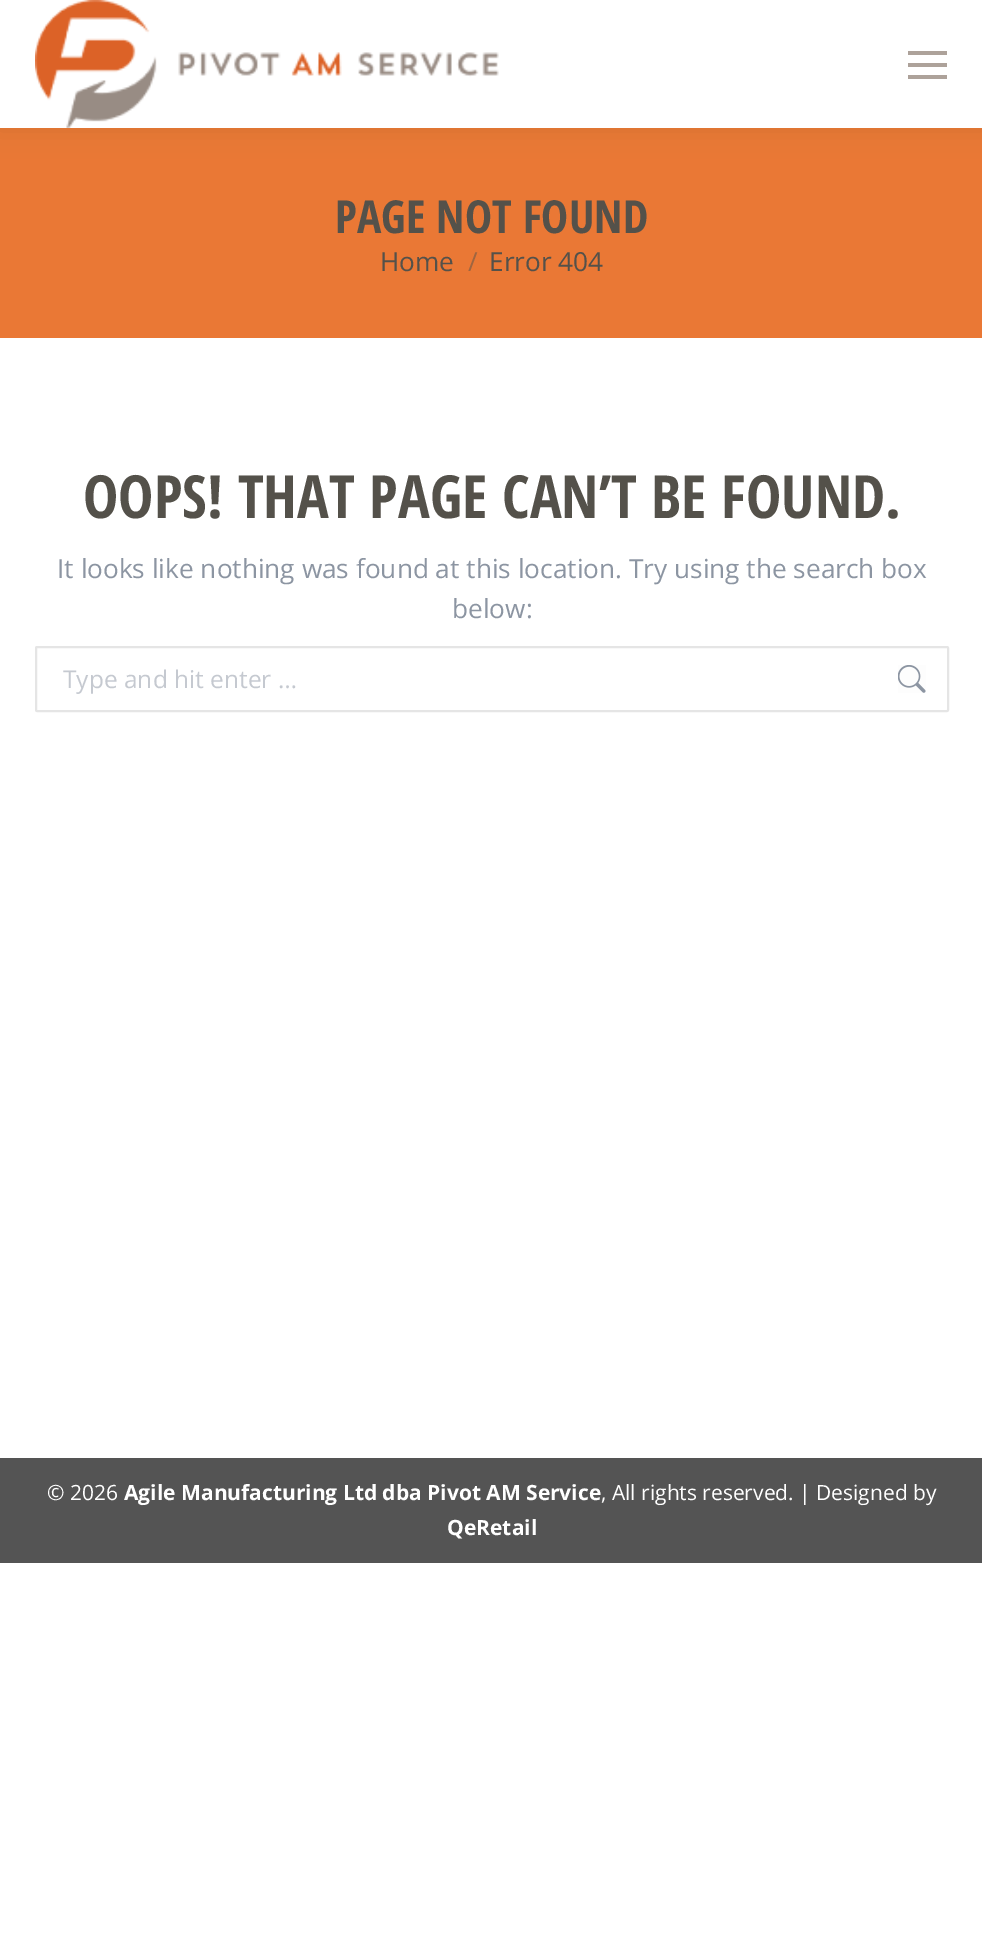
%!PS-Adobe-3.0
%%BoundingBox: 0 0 982 1953
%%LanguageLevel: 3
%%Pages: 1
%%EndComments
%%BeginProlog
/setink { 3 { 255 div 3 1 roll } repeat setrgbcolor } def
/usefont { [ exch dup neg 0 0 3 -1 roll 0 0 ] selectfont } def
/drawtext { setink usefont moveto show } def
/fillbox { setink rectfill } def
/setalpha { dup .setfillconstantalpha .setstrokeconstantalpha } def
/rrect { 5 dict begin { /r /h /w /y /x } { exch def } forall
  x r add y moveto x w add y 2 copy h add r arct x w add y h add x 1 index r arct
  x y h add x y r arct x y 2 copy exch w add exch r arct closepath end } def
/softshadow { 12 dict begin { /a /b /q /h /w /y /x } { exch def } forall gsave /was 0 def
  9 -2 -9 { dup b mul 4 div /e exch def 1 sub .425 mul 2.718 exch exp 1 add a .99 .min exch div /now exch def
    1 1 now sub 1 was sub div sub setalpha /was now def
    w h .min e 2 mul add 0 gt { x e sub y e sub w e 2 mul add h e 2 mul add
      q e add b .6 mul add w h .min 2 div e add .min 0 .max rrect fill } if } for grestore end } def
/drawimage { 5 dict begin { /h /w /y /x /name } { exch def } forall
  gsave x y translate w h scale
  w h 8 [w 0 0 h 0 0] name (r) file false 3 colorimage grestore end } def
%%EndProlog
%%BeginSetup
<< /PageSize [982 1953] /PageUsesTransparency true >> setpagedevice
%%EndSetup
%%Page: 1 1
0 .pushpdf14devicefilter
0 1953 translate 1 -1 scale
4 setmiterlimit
0 0 982 1953 255 255 255 fillbox
0 128 982 210 234 120 53 fillbox
0 0 0 setink
-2 -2 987 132 0 13 0.07 softshadow
0 0 982 128 255 255 255 fillbox
(assets/img1.rgb) 35 0 464 128 drawimage
908 51 39 4 173 162 154 fillbox
908 63 39 4 173 162 154 fillbox
908 75 39 4 173 162 154 fillbox
(PAGE NOT FOUND) 335 233 /OpenSansCondensed-Bold 45.5 84 81 74 drawtext
(Home) 380 271 /OpenSans-Regular 26.25 84 81 74 drawtext
(/) 468 271 /OpenSans-Regular 26.25 159 101 64 drawtext
(Error 404) 489 271 /OpenSans-Regular 26.25 84 81 74 drawtext
(OOPS! THAT PAGE CAN’T BE FOUND.) 83 518 /OpenSansCondensed-Bold 59.5 84 81 74 drawtext
(It looks like nothing was found at this location. Try using the search box) 57 578 /OpenSans-Regular 26.25 140 149 162 drawtext
(below:) 452 618 /OpenSans-Regular 26.25 140 149 162 drawtext
229 229 229 setink
2 setlinewidth
36 647 912 64 1 rrect stroke
(Type and hit enter …) 63 688 /OpenSans-Regular 24.5 197 201 208 drawtext
(assets/img2.rgb) 898 665 28 28 drawimage
0 1458 982 105 84 84 84 fillbox
(© 2026) 47 1500 /OpenSans-Regular 21 255 255 255 drawtext
(Agile Manufacturing Ltd dba Pivot AM Service) 124 1500 /OpenSans-Bold 21 255 255 255 drawtext
(, All rights reserved. | Designed by) 601 1500 /OpenSans-Regular 21 255 255 255 drawtext
(QeRetail) 447 1535 /OpenSans-Bold 21 255 255 255 drawtext
.poppdf14devicefilter showpage
%%EOF
